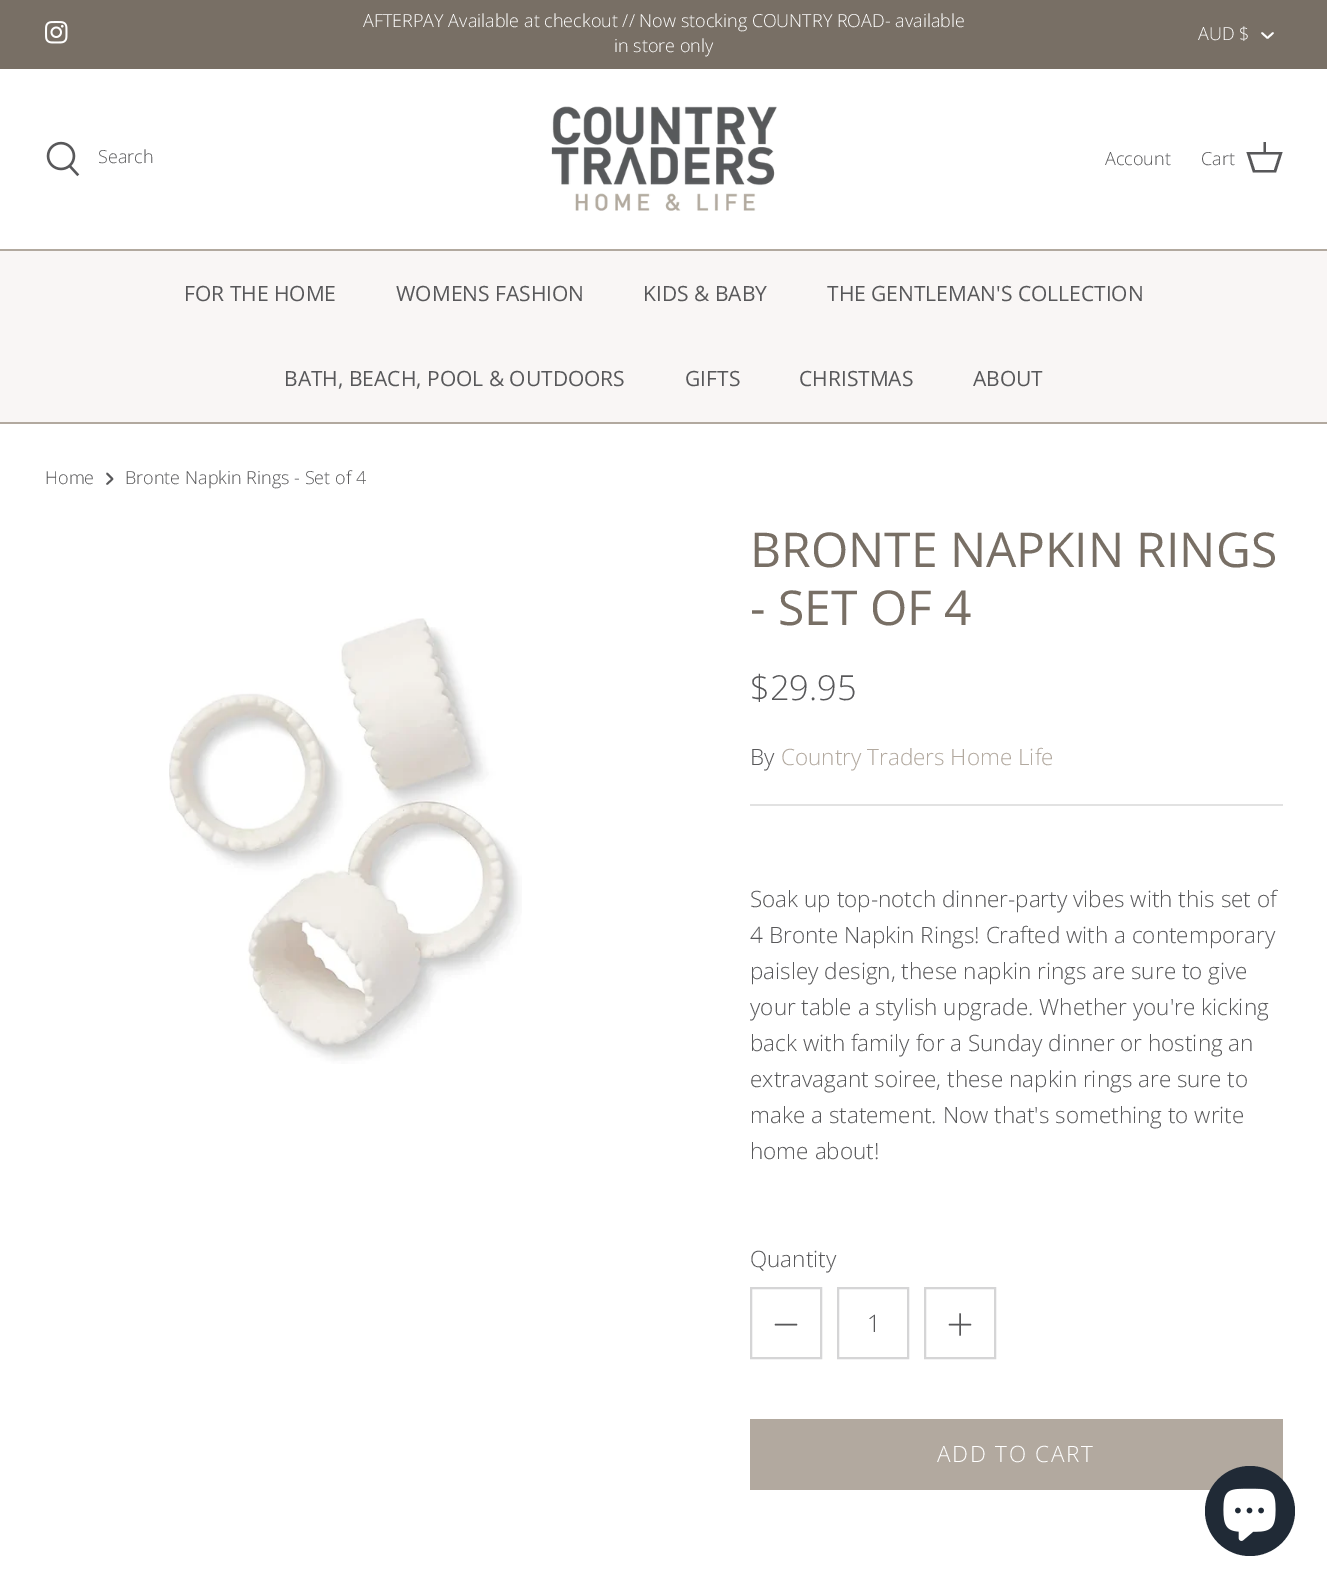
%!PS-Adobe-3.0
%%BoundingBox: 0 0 1327 1586
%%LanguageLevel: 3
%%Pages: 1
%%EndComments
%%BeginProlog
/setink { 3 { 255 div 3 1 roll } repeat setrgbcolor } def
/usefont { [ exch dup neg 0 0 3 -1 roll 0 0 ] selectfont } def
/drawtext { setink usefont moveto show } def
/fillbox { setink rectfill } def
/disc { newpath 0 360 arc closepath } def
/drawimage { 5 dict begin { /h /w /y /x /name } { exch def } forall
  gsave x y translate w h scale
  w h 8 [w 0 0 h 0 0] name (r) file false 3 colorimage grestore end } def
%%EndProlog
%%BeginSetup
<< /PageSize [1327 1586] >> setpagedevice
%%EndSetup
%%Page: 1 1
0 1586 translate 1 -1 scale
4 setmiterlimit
0 0 1327 1586 255 255 255 fillbox
0 0 1327 69 120 111 101 fillbox
(assets/img1.rgb) 45 21 23 23 drawimage
(AFTERPAY Available at checkout // Now stocking COUNTRY ROAD- available) 363 27 /OpenSans-Light 18 255 255 255 drawtext
(in store only) 614 52 /OpenSans-Light 18 255 255 255 drawtext
(AUD $) 1198 40 /OpenSans-Light 18 255 255 255 drawtext
1.8 setlinewidth
1 setlinecap
1 setlinejoin
1262 33 moveto 1267.5 38 lineto 1273 33 lineto stroke
0 249 1327 2 178 169 159 fillbox
(assets/img2.rgb) 46 141 34 36 drawimage
(Search) 98 163 /OpenSans-Light 18 88 88 90 drawtext
(assets/img3.rgb) 551 106 226 105 drawimage
(Account) 1105 165 /OpenSans-Light 18 88 88 90 drawtext
(Cart) 1201 165 /OpenSans-Light 18 88 88 90 drawtext
1263.5 152 moveto 1263.5 142 lineto 1266 142 lineto 1266 152 lineto 1282.5 152 lineto 1276 172.5 lineto 1253 172.5 lineto 1246.5 152 lineto closepath 1250 154.5 moveto 1255 170 lineto 1274 170 lineto 1279 154.5 lineto closepath fill
0 422 1327 2 178 169 159 fillbox
0 251 1327 171 249 246 245 fillbox
(FOR THE HOME) 184 301 /OpenSans-Regular 21 88 88 90 drawtext
(WOMENS FASHION) 396 301 /OpenSans-Regular 21 88 88 90 drawtext
(KIDS & BABY) 643 301 /OpenSans-Regular 21 88 88 90 drawtext
(THE GENTLEMAN'S COLLECTION) 827 301 /OpenSans-Regular 21 88 88 90 drawtext
(BATH, BEACH, POOL & OUTDOORS) 284 386 /OpenSans-Regular 21 88 88 90 drawtext
(GIFTS) 685 386 /OpenSans-Regular 21 88 88 90 drawtext
(CHRISTMAS) 799 386 /OpenSans-Regular 21 88 88 90 drawtext
(ABOUT) 973 386 /OpenSans-Regular 21 88 88 90 drawtext
(Home) 45 484 /OpenSans-Light 18 88 88 90 drawtext
107 484 moveto 112.5 479 lineto 107 473.5 lineto stroke
(Bronte Napkin Rings - Set of 4) 125 484 /OpenSans-Light 18 88 88 90 drawtext
(assets/img4.rgb) 169 618 353 446 drawimage
(BRONTE NAPKIN RINGS) 750 567 /OpenSans-Regular 48 120 111 101 drawtext
(- SET OF 4) 750 625 /OpenSans-Regular 48 120 111 101 drawtext
($29.95) 750 700 /OpenSans-Light 34.5 88 88 90 drawtext
(By) 750 765 /OpenSans-Light 22.5 88 88 90 drawtext
(Country Traders Home Life) 781 765 /OpenSans-Light 22.5 178 169 159 drawtext
750 804 533 2 226 226 226 fillbox
(Soak up top-notch dinner-party vibes with this set of) 750 907 /OpenSans-Light 22.5 88 88 90 drawtext
(4 Bronte Napkin Rings! Crafted with a contemporary) 750 943 /OpenSans-Light 22.5 88 88 90 drawtext
(paisley design, these napkin rings are sure to give) 750 979 /OpenSans-Light 22.5 88 88 90 drawtext
(your table a stylish upgrade. Whether you're kicking) 750 1015 /OpenSans-Light 22.5 88 88 90 drawtext
(back with family for a Sunday dinner or hosting an) 750 1051 /OpenSans-Light 22.5 88 88 90 drawtext
(extravagant soiree, these napkin rings are sure to) 750 1087 /OpenSans-Light 22.5 88 88 90 drawtext
(make a statement. Now that's something to write) 750 1123 /OpenSans-Light 22.5 88 88 90 drawtext
(home about!) 750 1159 /OpenSans-Light 22.5 88 88 90 drawtext
(Quantity) 750 1267 /OpenSans-Light 22.5 88 88 90 drawtext
213 213 214 setink
2 setlinewidth
0 setlinecap
0 setlinejoin
751 1288 70 70 rectstroke
88 88 90 setink
1.5 setlinewidth
1 setlinecap
1 setlinejoin
775.5 1324.5 moveto 796.5 1324.5 lineto stroke
213 213 214 setink
2 setlinewidth
0 setlinecap
0 setlinejoin
838 1288 70 70 rectstroke
(1) 867 1332 /OpenSans-Light 24 88 88 90 drawtext
213 213 214 setink
925 1288 70 70 rectstroke
88 88 90 setink
1.5 setlinewidth
1 setlinecap
1 setlinejoin
960 1314 moveto 960 1335 lineto 949.5 1324.5 moveto 970.5 1324.5 lineto stroke
750 1419 533 71 178 169 159 fillbox
/OpenSans-Light 22.5 usefont
255 255 255 setink
937 1462 moveto 1.75 0 (ADD TO CART) ashow
32 42 54 setink
1250 1511 45 disc fill
(assets/img5.rgb) 1223 1488 53 53 drawimage
showpage
%%EOF
